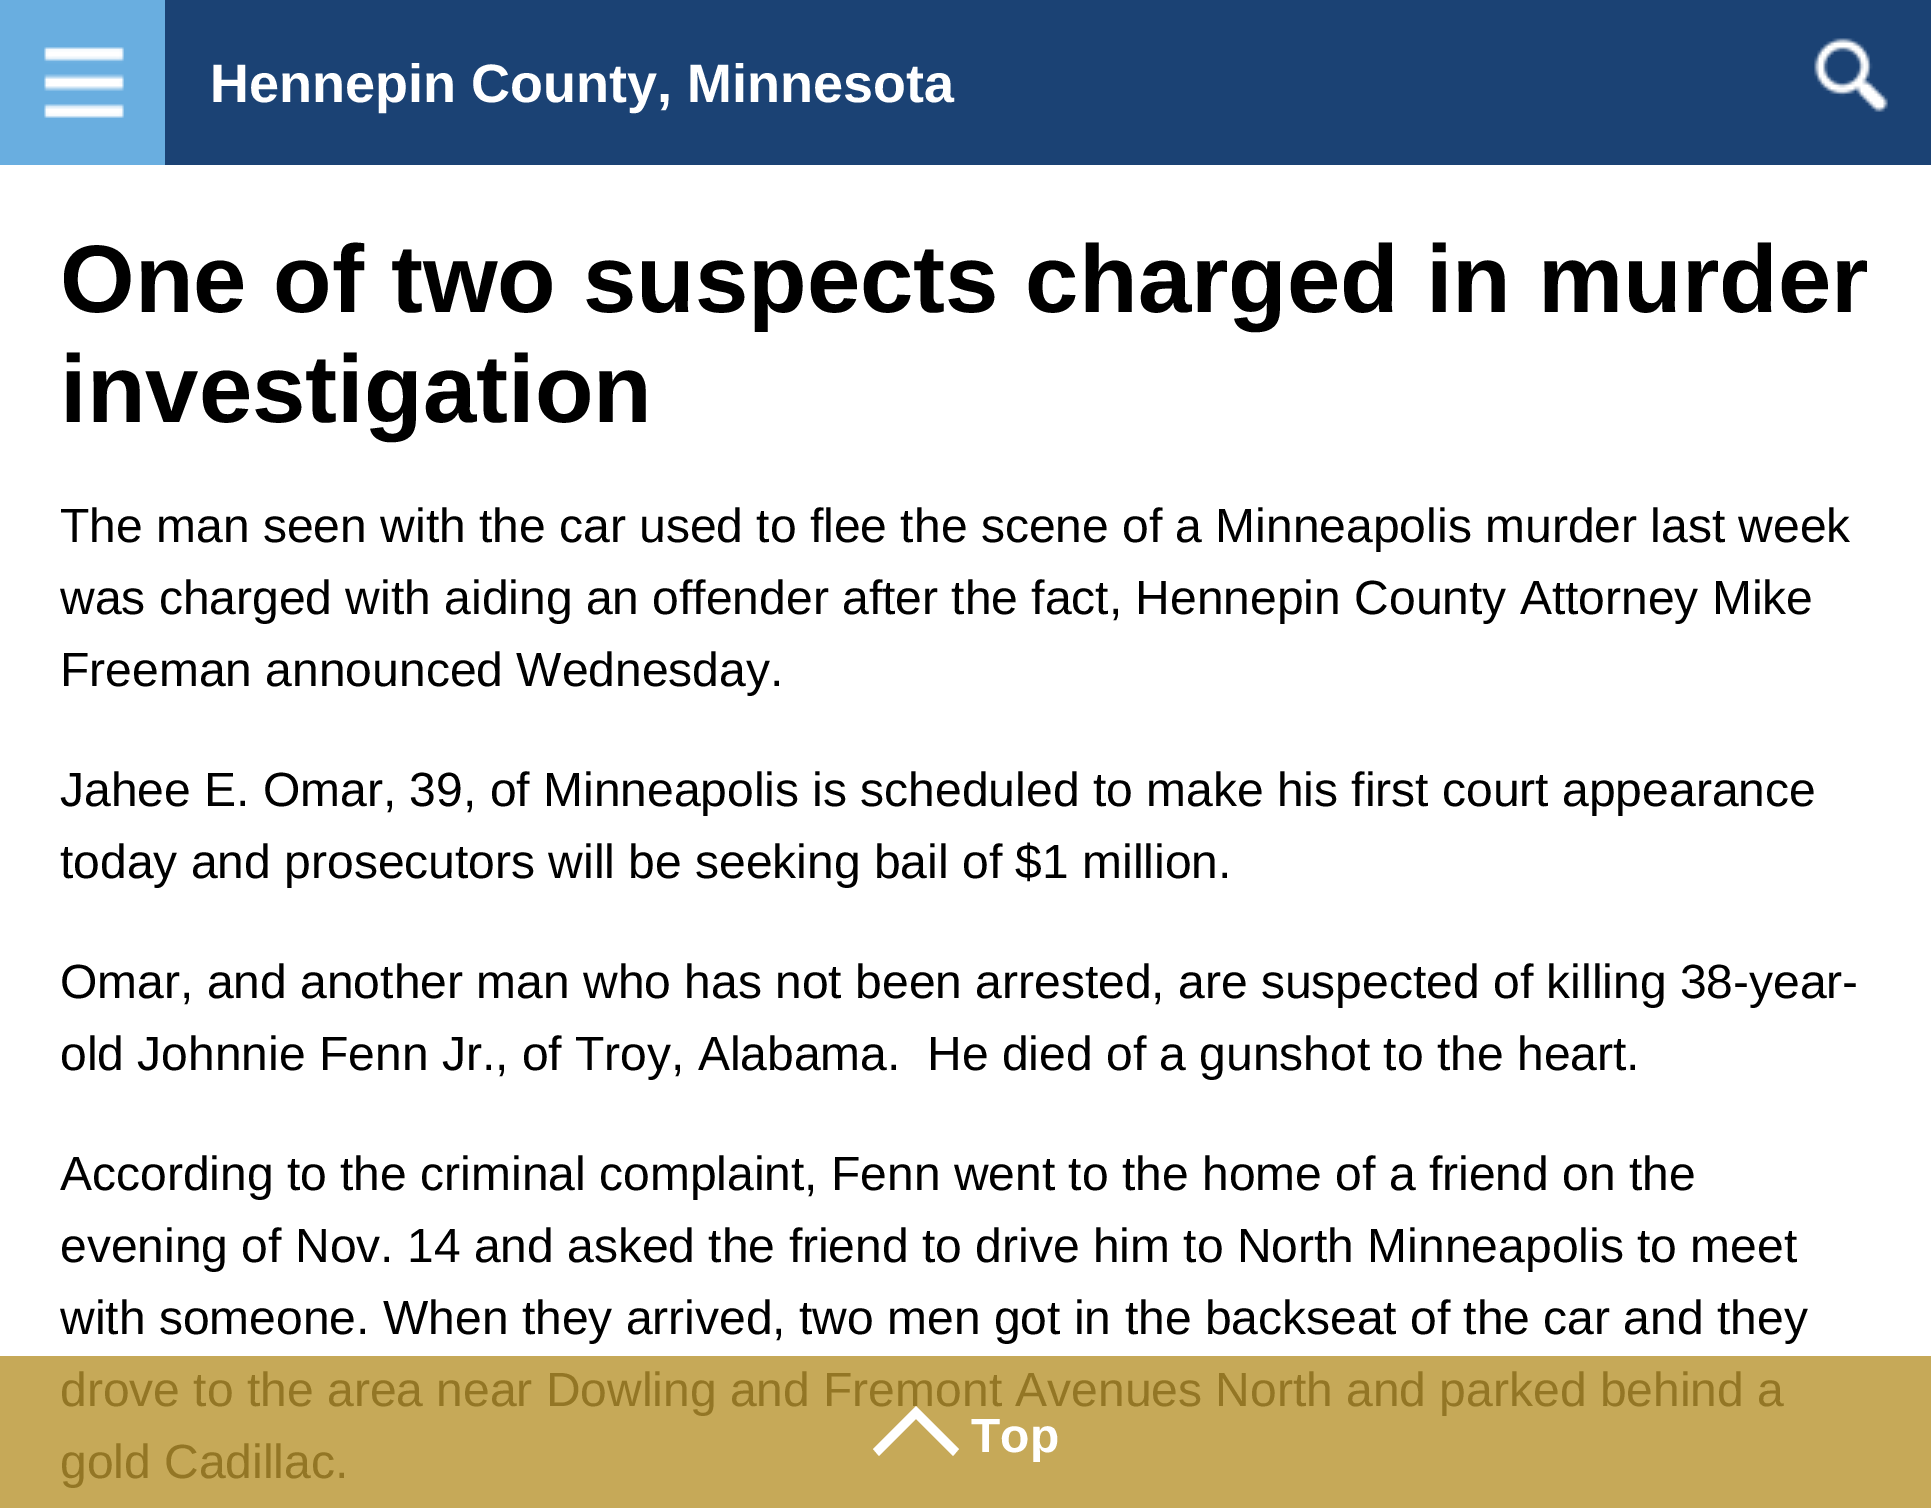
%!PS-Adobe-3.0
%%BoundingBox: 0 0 1931 1508
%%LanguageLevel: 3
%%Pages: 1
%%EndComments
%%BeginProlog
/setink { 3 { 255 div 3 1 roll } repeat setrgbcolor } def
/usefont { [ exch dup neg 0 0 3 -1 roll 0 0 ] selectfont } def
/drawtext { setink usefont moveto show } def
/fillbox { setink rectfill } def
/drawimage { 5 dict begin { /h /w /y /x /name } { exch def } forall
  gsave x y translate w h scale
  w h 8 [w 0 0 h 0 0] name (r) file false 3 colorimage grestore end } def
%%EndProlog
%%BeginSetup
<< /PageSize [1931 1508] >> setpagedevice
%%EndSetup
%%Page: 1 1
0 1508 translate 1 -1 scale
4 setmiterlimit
0 0 1931 1508 255 255 255 fillbox
0 1356 1931 152 198 169 88 fillbox
165 0 1766 165 27 66 116 fillbox
0 0 165 165 105 174 224 fillbox
(assets/img1.rgb) 44 47 80 71 drawimage
(Hennepin County, Minnesota) 210 102 /LiberationSans-Bold 54 255 255 255 drawtext
(assets/img2.rgb) 1814 38 74 74 drawimage
(One of two suspects charged in murder) 60 312 /LiberationSans-Bold 96 0 0 0 drawtext
(investigation) 60 422 /LiberationSans-Bold 96 0 0 0 drawtext
(The man seen with the car used to flee the scene of a Minneapolis murder last week) 60 542 /LiberationSans-Regular 48 0 0 0 drawtext
(was charged with aiding an offender after the fact, Hennepin County Attorney Mike) 60 614 /LiberationSans-Regular 48 0 0 0 drawtext
(Freeman announced Wednesday.) 60 686 /LiberationSans-Regular 48 0 0 0 drawtext
(Jahee E. Omar, 39, of Minneapolis is scheduled to make his first court appearance) 60 806 /LiberationSans-Regular 48 0 0 0 drawtext
(today and prosecutors will be seeking bail of $1 million.) 60 878 /LiberationSans-Regular 48 0 0 0 drawtext
(Omar, and another man who has not been arrested, are suspected of killing 38-year-) 60 998 /LiberationSans-Regular 48 0 0 0 drawtext
(old Johnnie Fenn Jr., of Troy, Alabama.  He died of a gunshot to the heart.) 60 1070 /LiberationSans-Regular 48 0 0 0 drawtext
(According to the criminal complaint, Fenn went to the home of a friend on the) 60 1190 /LiberationSans-Regular 48 0 0 0 drawtext
(evening of Nov. 14 and asked the friend to drive him to North Minneapolis to meet) 60 1262 /LiberationSans-Regular 48 0 0 0 drawtext
(with someone. When they arrived, two men got in the backseat of the car and they) 60 1334 /LiberationSans-Regular 48 0 0 0 drawtext
(drove to the area near Dowling and Fremont Avenues North and parked behind a) 60 1406 /LiberationSans-Regular 48 147 118 37 drawtext
(gold Cadillac.) 60 1478 /LiberationSans-Regular 48 147 118 37 drawtext
255 255 255 setink
953 1456 moveto 959 1449 lineto 916 1406 lineto 873 1449 lineto 879 1456 lineto 916 1419 lineto closepath fill
(Top) 971 1452 /LiberationSans-Bold 48 255 255 255 drawtext
showpage
%%EOF
